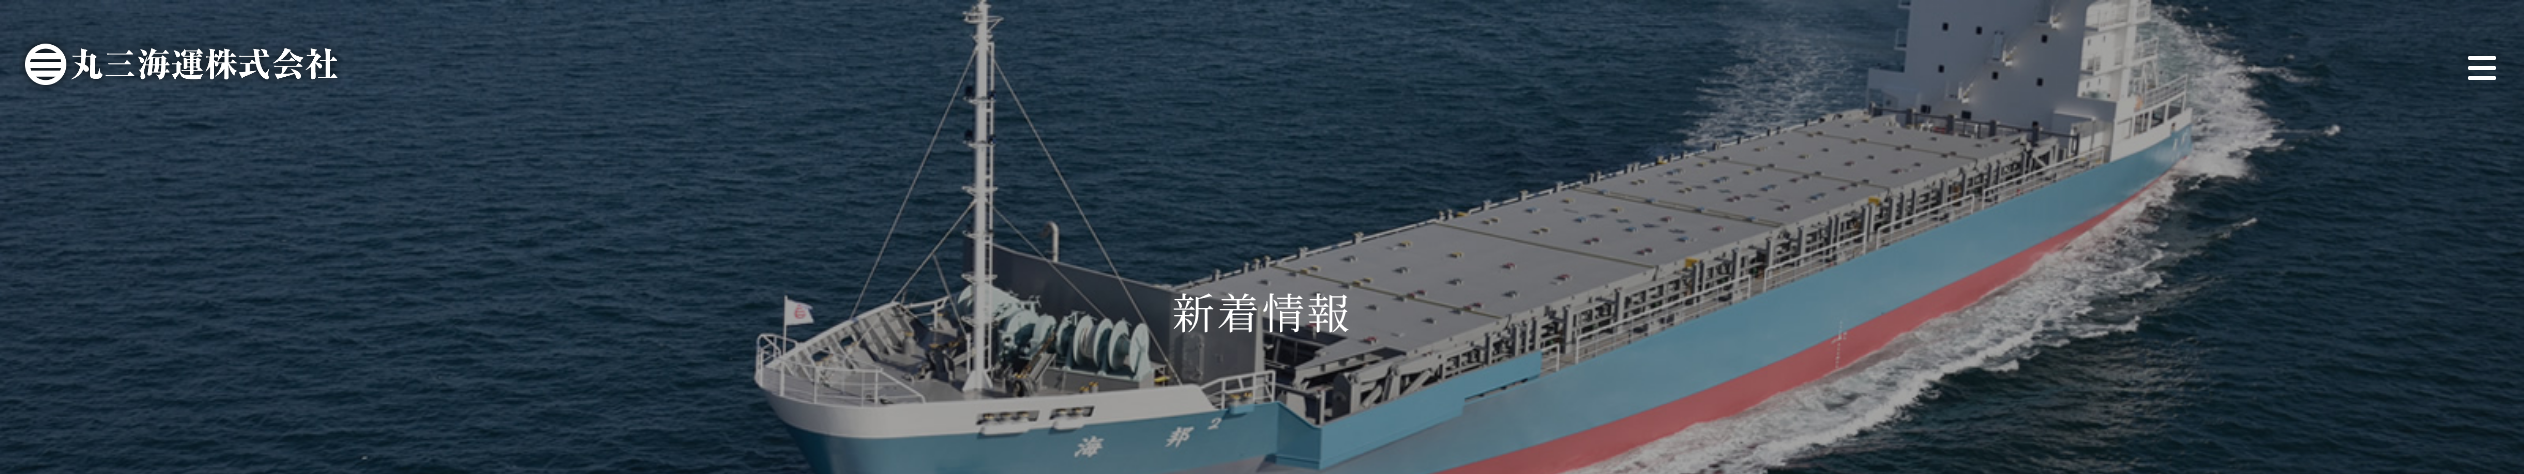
%!PS-Adobe-3.0
%%BoundingBox: 0 0 2524 474
%%LanguageLevel: 3
%%Pages: 1
%%EndComments
%%BeginProlog
/setink { 3 { 255 div 3 1 roll } repeat setrgbcolor } def
/usefont { [ exch dup neg 0 0 3 -1 roll 0 0 ] selectfont } def
/fillbox { setink rectfill } def
/setalpha { dup .setfillconstantalpha .setstrokeconstantalpha } def
/rrect { 5 dict begin { /r /h /w /y /x } { exch def } forall
  x r add y moveto x w add y 2 copy h add r arct x w add y h add x 1 index r arct
  x y h add x y r arct x y 2 copy exch w add exch r arct closepath end } def
/softshadow { 12 dict begin { /a /b /q /h /w /y /x } { exch def } forall gsave /was 0 def
  9 -2 -9 { dup b mul 4 div /e exch def 1 sub .425 mul 2.718 exch exp 1 add a .99 .min exch div /now exch def
    1 1 now sub 1 was sub div sub setalpha /was now def
    w h .min e 2 mul add 0 gt { x e sub y e sub w e 2 mul add h e 2 mul add
      q e add b .6 mul add w h .min 2 div e add .min 0 .max rrect fill } if } for grestore end } def
/drawimage { 5 dict begin { /h /w /y /x /name } { exch def } forall
  gsave x y translate w h scale
  w h 8 [w 0 0 h 0 0] name (r) file false 3 colorimage grestore end } def
%%EndProlog
%%BeginSetup
<< /PageSize [2524 474] /PageUsesTransparency true >> setpagedevice
%%EndSetup
%%Page: 1 1
0 .pushpdf14devicefilter
0 474 translate 1 -1 scale
4 setmiterlimit
0 0 2524 474 255 255 255 fillbox
(assets/img2.rgb) 0 0 2524 474 drawimage
(assets/img1.rgb) 19 37 321 54 drawimage
0 0 0 setink
2466 55 34 9 4.5 5 0.23 softshadow
255 255 255 setink
2468 56 28 4 2 rrect fill
2468 66 28 4 2 rrect fill
2468 76 28 4 2 rrect fill
/NotoSerifJP-Regular 42.5 usefont
1172 329 moveto 2.5 0 (新着情報) ashow
.poppdf14devicefilter showpage
%%EOF
